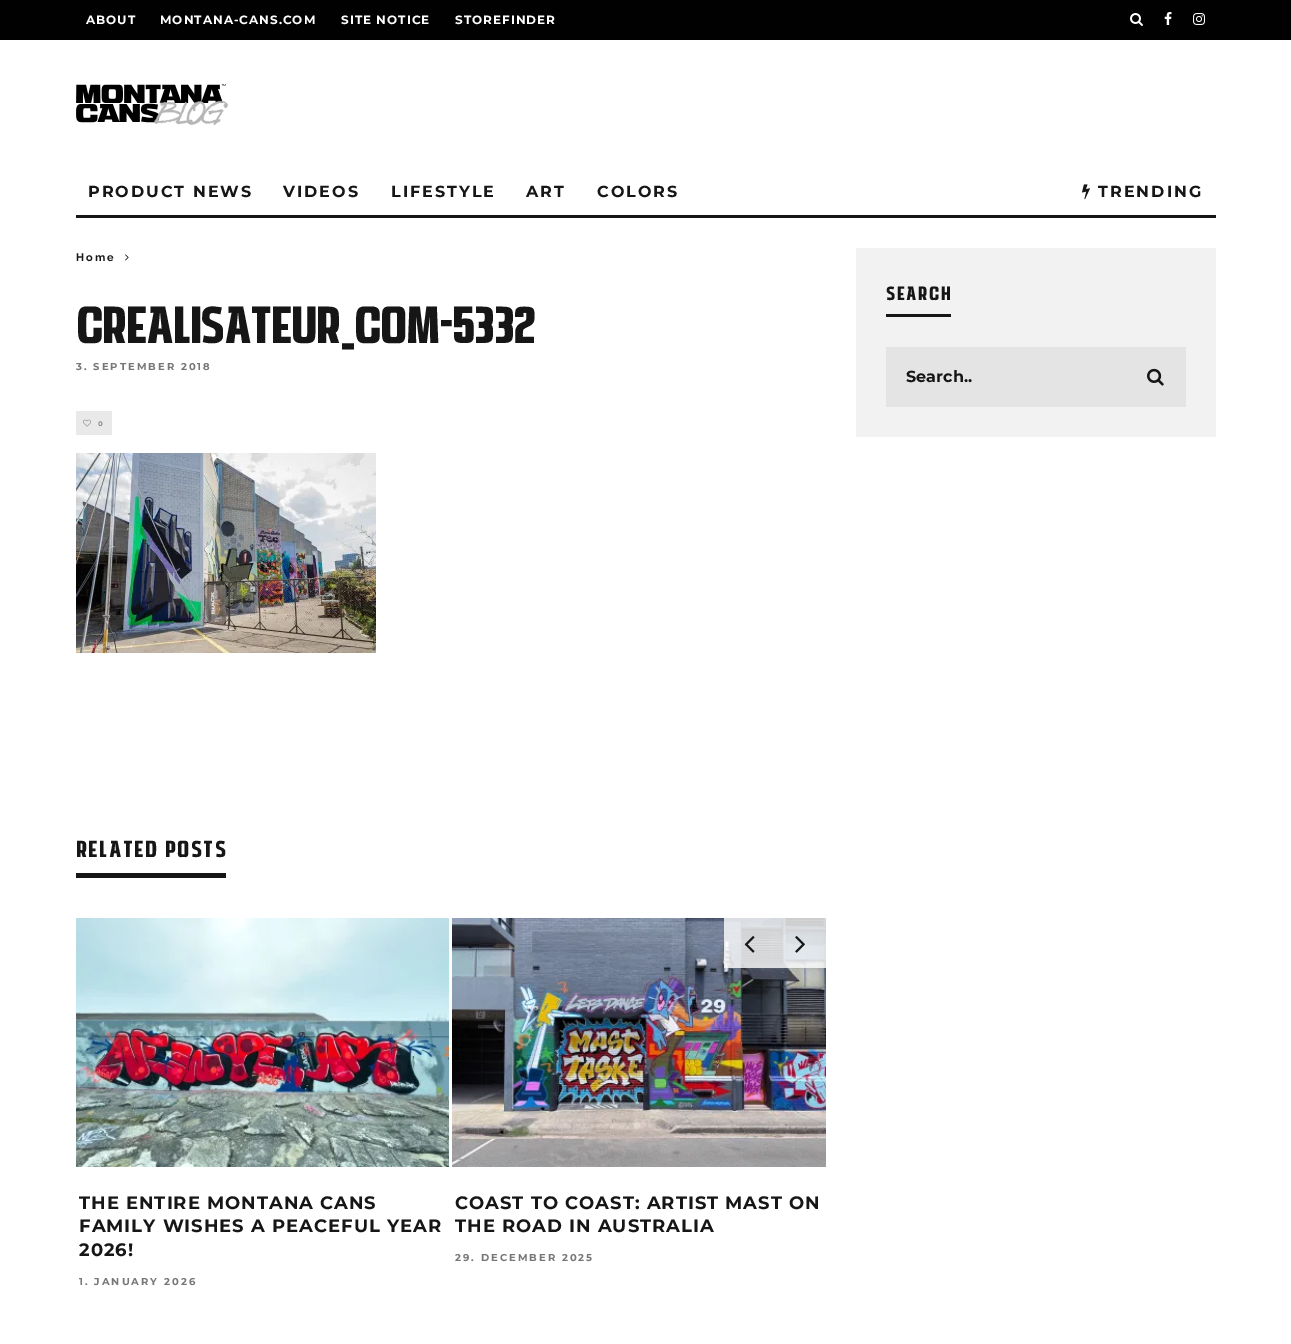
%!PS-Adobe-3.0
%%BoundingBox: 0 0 1291 1344
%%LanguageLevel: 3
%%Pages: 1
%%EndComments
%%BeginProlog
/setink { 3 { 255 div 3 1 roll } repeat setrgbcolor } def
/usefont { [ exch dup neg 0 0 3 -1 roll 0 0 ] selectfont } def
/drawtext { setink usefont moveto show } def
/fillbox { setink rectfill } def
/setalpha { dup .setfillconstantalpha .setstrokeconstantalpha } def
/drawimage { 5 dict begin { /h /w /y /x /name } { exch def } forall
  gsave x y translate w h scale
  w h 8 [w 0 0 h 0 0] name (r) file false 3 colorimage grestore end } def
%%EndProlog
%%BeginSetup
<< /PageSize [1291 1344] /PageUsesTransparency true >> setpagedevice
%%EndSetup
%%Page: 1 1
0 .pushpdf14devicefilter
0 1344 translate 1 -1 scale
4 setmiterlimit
0 0 1291 1344 255 255 255 fillbox
0 0 1291 40 1 1 1 fillbox
/Montserrat-Bold 12 usefont
255 255 255 setink
86 24 moveto 1 0 (ABOUT) ashow
160 24 moveto 1 0 (MONTANA-CANS.COM) ashow
341 24 moveto 1 0 (SITE NOTICE) ashow
455 24 moveto 1 0 (STOREFINDER) ashow
(assets/img1.rgb) 1130 13 13 13 drawimage
(assets/img2.rgb) 1164 12 8 13 drawimage
(assets/img3.rgb) 1193 13 12 12 drawimage
(assets/img4.rgb) 76 84 152 42 drawimage
76 215 1140 3 22 22 22 fillbox
/Montserrat-Bold 16 usefont
88 197 moveto 2 0 (PRODUCT NEWS) ashow
283 197 moveto 2 0 (VIDEOS) ashow
391 197 moveto 2 0 (LIFESTYLE) ashow
526 197 moveto 2 0 (ART) ashow
597 197 moveto 2 0 (COLORS) ashow
(assets/img5.rgb) 1082 184 8 16 drawimage
1098 197 moveto 2 0 (TRENDING) ashow
/Raleway-Bold 11 usefont
76 261 moveto 2 0 (Home) ashow
(assets/img6.rgb) 125 254 4 7 drawimage
(crealisateur_com-5332) 76 343 /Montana-Bold 54 22 22 22 drawtext
/Montserrat-Bold 10 usefont
119 119 119 setink
76 370 moveto 2 0 (3. SEPTEMBER 2018) ashow
76 411 36 24 233 233 233 fillbox
(assets/img7.rgb) 83 419 8 8 drawimage
/Raleway-Bold 8 usefont
134 134 134 setink
98 426 moveto 2 0 (0) ashow
(assets/img8.rgb) 76 453 300 200 drawimage
76 873 150 5 22 22 22 fillbox
/Montana-Bold 24 usefont
76 857 moveto 2 0 (RELATED POSTS) ashow
(assets/img12.rgb) 452 918 374 249 drawimage
0.8 setalpha
724 918 51 50 255 255 255 fillbox
1 setalpha
(assets/img9.rgb) 744 936 11 17 drawimage
0.8 setalpha
775 918 51 50 255 255 255 fillbox
1 setalpha
(assets/img10.rgb) 795 936 10 17 drawimage
(assets/img11.rgb) 76 918 373 249 drawimage
/Montserrat-Bold 18 usefont
22 22 22 setink
79 1209 moveto 1 0 (THE ENTIRE MONTANA CANS) ashow
79 1232 moveto 1 0 (FAMILY WISHES A PEACEFUL YEAR) ashow
79 1256 moveto 1 0 (2026!) ashow
/Montserrat-Bold 10 usefont
119 119 119 setink
79 1285 moveto 2 0 (1. JANUARY 2026) ashow
/Montserrat-Bold 18 usefont
22 22 22 setink
455 1209 moveto 1 0 (COAST TO COAST: ARTIST MAST ON) ashow
455 1232 moveto 1 0 (THE ROAD IN AUSTRALIA) ashow
/Montserrat-Bold 10 usefont
119 119 119 setink
455 1261 moveto 2 0 (29. DECEMBER 2025) ashow
856 248 360 189 242 242 242 fillbox
886 314 65 3 22 22 22 fillbox
/Montana-Bold 20 usefont
886 300 moveto 2 0 (SEARCH) ashow
886 347 300 60 228 228 228 fillbox
(Search..) 906 382 /Montserrat-Bold 16 22 22 22 drawtext
(assets/img13.rgb) 1147 368 17 18 drawimage
.poppdf14devicefilter showpage
%%EOF
